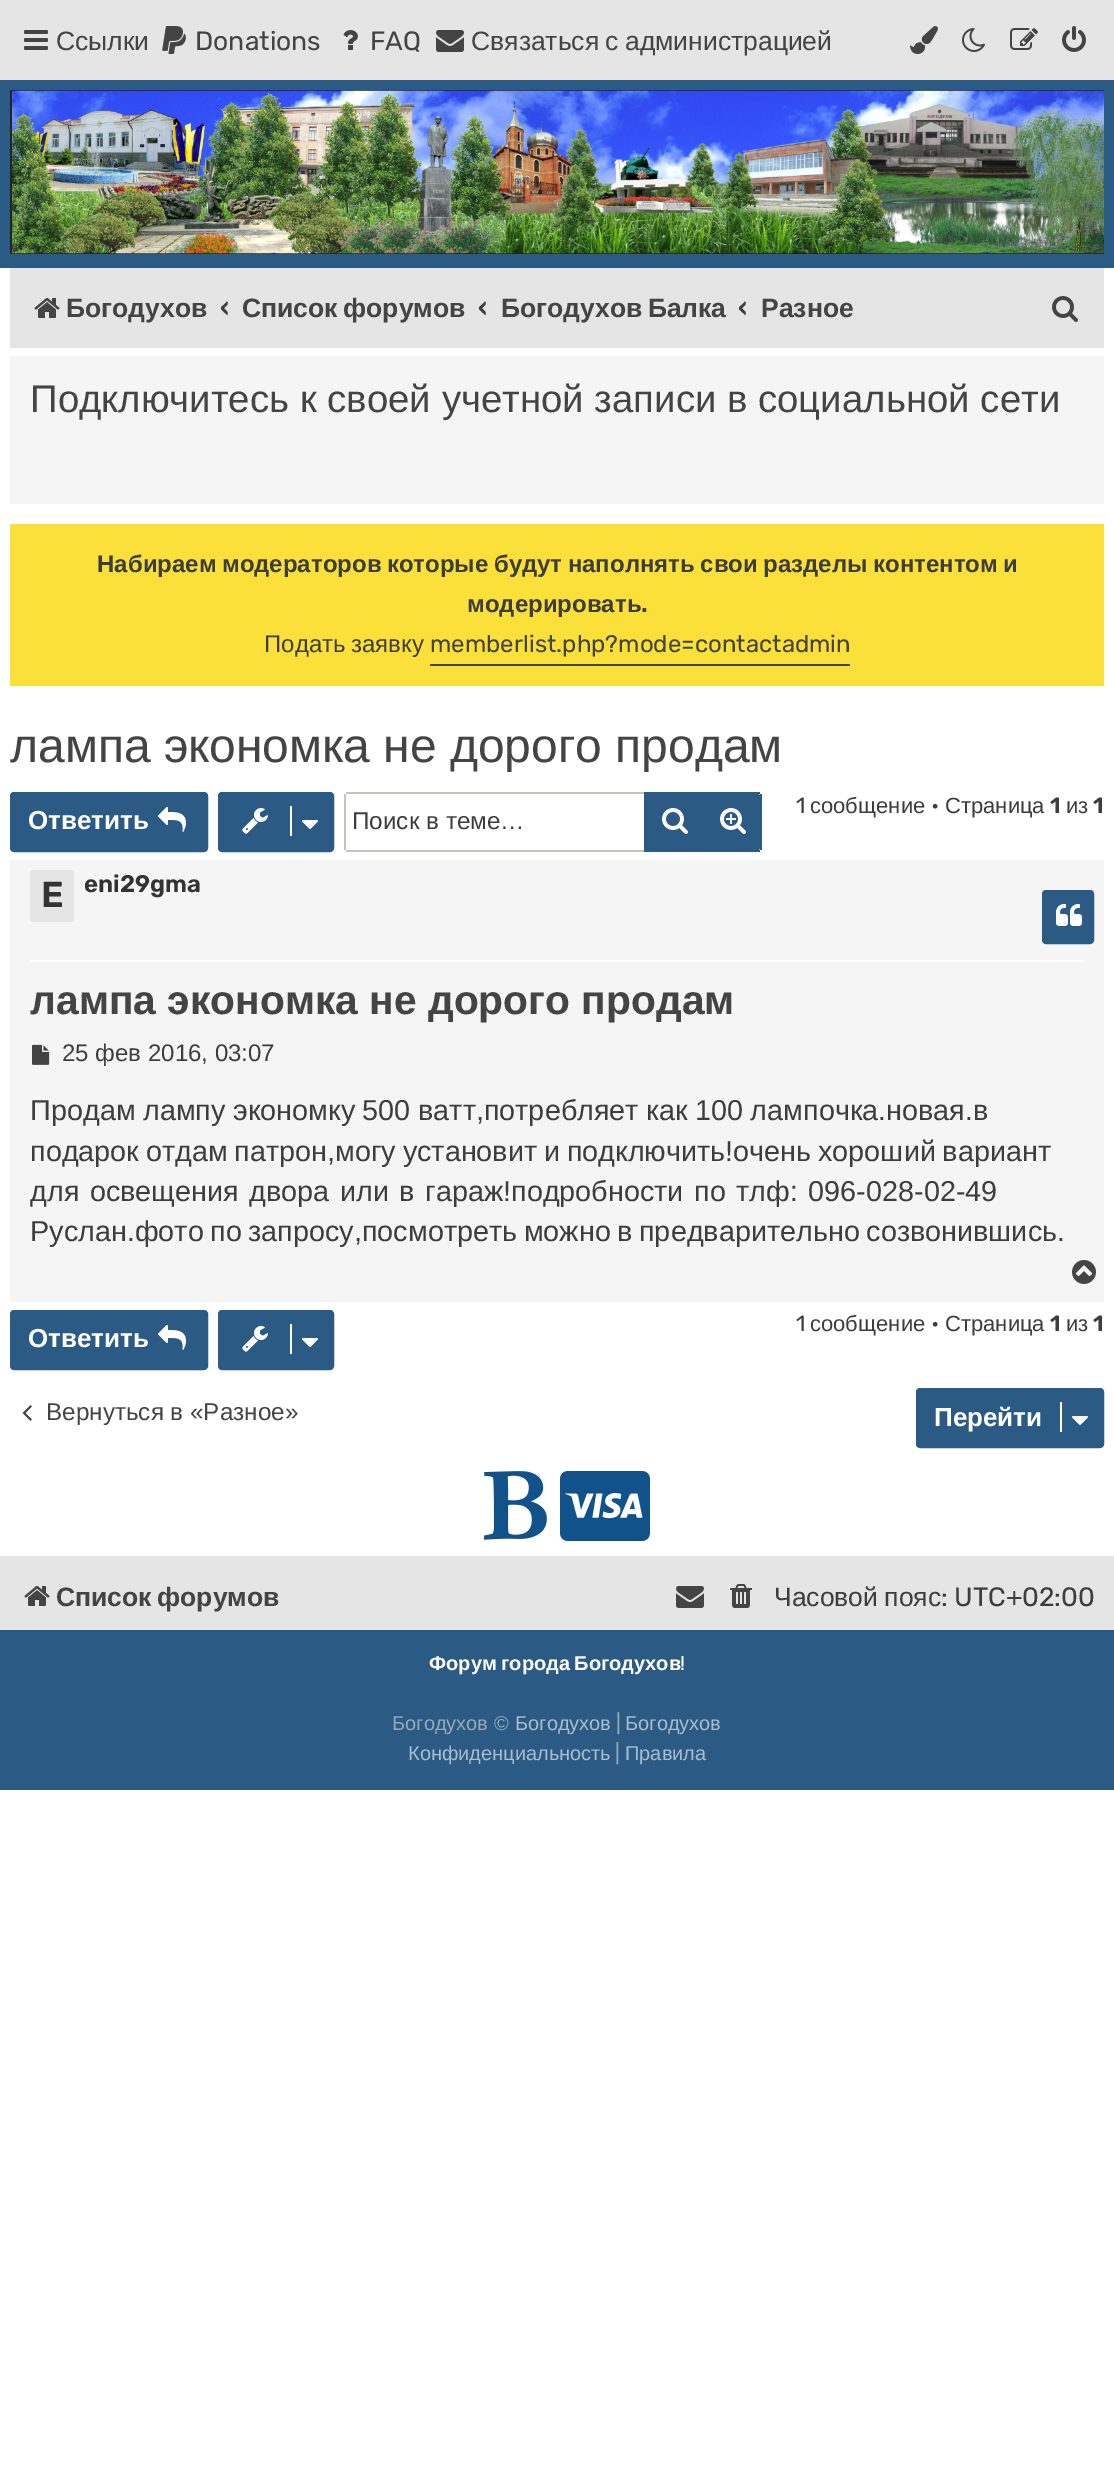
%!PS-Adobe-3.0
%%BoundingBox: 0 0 1114 2471
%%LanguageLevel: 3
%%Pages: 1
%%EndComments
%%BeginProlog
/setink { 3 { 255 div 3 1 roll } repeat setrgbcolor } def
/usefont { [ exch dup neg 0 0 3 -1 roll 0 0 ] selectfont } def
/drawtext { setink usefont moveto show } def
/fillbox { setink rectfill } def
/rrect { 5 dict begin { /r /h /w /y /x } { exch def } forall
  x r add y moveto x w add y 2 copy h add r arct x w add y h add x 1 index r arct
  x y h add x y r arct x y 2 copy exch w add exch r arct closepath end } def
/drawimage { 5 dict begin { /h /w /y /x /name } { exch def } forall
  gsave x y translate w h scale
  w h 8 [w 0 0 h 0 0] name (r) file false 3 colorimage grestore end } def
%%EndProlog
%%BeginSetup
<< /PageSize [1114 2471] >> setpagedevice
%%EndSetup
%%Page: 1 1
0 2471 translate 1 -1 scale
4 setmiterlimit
0 0 1114 2471 255 255 255 fillbox
0 0 1114 80 229 229 229 fillbox
(assets/img1.rgb) 24 30 24 20 drawimage
(Ссылки) 56 50 /LiberationSans-Regular 26.5 68 68 68 drawtext
(assets/img2.rgb) 162 26 24 28 drawimage
(Donations) 195 50 /Rubik-Light 26.5 68 68 68 drawtext
(assets/img3.rgb) 343 30 15 20 drawimage
(FAQ) 370 50 /Rubik-Light 26.5 68 68 68 drawtext
(assets/img4.rgb) 436 30 28 22 drawimage
(Связаться) 471 50 /LiberationSans-Regular 26.5 68 68 68 drawtext
(с) 605 50 /LiberationSans-Regular 26.5 68 68 68 drawtext
(администрацией) 625 50 /LiberationSans-Regular 26.5 68 68 68 drawtext
(assets/img5.rgb) 910 26 28 28 drawimage
(assets/img6.rgb) 962 28 23 24 drawimage
(assets/img7.rgb) 1010 28 28 22 drawimage
(assets/img8.rgb) 1062 26 24 26 drawimage
0 80 1114 188 43 91 132 fillbox
(assets/img9.rgb) 10 90 1094 164 drawimage
10 268 1094 80 229 229 229 fillbox
(assets/img10.rgb) 34 298 26 20 drawimage
(Богодухов) 66 317 /LiberationSans-Bold 26.5 68 68 68 drawtext
(‹) 220 317 /Rubik-SemiBold 26.5 61 61 61 drawtext
/LiberationSans-Bold 26.5 usefont
68 68 68 setink
242 317 moveto -2 0 32 (Список форумов) widthshow
(‹) 478 317 /Rubik-SemiBold 26.5 61 61 61 drawtext
/LiberationSans-Bold 26.5 usefont
68 68 68 setink
501 317 moveto -2 0 32 (Богодухов Балка) widthshow
(‹) 738 317 /Rubik-SemiBold 26.5 61 61 61 drawtext
(Разное) 761 317 /LiberationSans-Bold 26.5 68 68 68 drawtext
(assets/img11.rgb) 1052 296 26 26 drawimage
10 356 1094 148 245 245 245 fillbox
(Подключитесь к своей учетной записи в социальной сети) 30 412 /LiberationSans-Regular 38.4 68 68 68 drawtext
10 524 1094 162 250 224 57 fillbox
/LiberationSans-Bold 24 usefont
61 61 61 setink
97 572 moveto -1.25 0 32 (Набираем модераторов которые будут наполнять свои разделы контентом и) widthshow
(модерировать) 467 612 /LiberationSans-Bold 24 61 61 61 drawtext
(.) 641 612 /Rubik-SemiBold 24 61 61 61 drawtext
/LiberationSans-Regular 24 usefont
264 652 moveto -1 0 32 (Подать заявку) widthshow
430 664 420 2 68 68 68 fillbox
(memberlist.php?mode=contactadmin) 430 652 /Rubik-Light 24 68 68 68 drawtext
(лампа экономка не дорого продам) 10 762 /LiberationSans-Regular 48 68 68 68 drawtext
43 91 132 setink
219 793 114 58 3 rrect gsave fill grestore
2 setlinewidth
stroke
(assets/img12.rgb) 242 808 26 26 drawimage
290 806 2 30 255 255 255 fillbox
(assets/img13.rgb) 302 820 16 9 drawimage
(1) 796 813 /Rubik-Light 22 61 61 61 drawtext
(сообщение) 810 813 /LiberationSans-Regular 22 61 61 61 drawtext
(•) 931 813 /Rubik-Light 22 61 61 61 drawtext
(Страница) 945 813 /LiberationSans-Regular 22 61 61 61 drawtext
(1) 1050 813 /Rubik-SemiBold 22 61 61 61 drawtext
(из) 1066 813 /LiberationSans-Regular 22 61 61 61 drawtext
(1) 1093 813 /Rubik-SemiBold 22 61 61 61 drawtext
43 91 132 setink
11 793 196 58 3 rrect gsave fill grestore
stroke
(Ответить) 28 829 /LiberationSans-Bold 26 255 255 255 drawtext
(assets/img14.rgb) 158 807 28 25 drawimage
346 792 298 2 199 195 191 fillbox
346 850 298 2 199 195 191 fillbox
344 794 2 56 199 195 191 fillbox
(Поиск в теме…) 352 829 /LiberationSans-Regular 24.25 61 61 61 drawtext
644 792 60 60 43 91 132 fillbox
(assets/img15.rgb) 662 808 26 26 drawimage
704 794 moveto 758 794 lineto 759 794 760 795 760 796 curveto 760 848 lineto 760 849 759 850 758 850 curveto 704 850 lineto closepath fill
704 792 56 2 43 91 132 fillbox
760 794 2 56 43 91 132 fillbox
704 850 56 2 43 91 132 fillbox
(assets/img16.rgb) 720 808 26 26 drawimage
10 860 1094 442 245 245 245 fillbox
30 960 1054 2 255 255 255 fillbox
229 229 229 setink
30 870 44 52 4 rrect fill
(E) 41 907 /Rubik-SemiBold 36 51 51 51 drawtext
(eni29gma) 84 892 /Rubik-SemiBold 24 51 51 51 drawtext
43 91 132 setink
1043 891 50 52 3 rrect gsave fill grestore
stroke
(assets/img17.rgb) 1056 904 26 22 drawimage
(лампа экономка не дорого продам) 30 1014 /LiberationSans-Bold 40.75 68 68 68 drawtext
(assets/img18.rgb) 32 1044 18 21 drawimage
(25 фев 2016, 03:07) 62 1061 /LiberationSans-Regular 24 61 61 61 drawtext
/LiberationSans-Regular 28.8 usefont
30 1120 moveto -0.5 0 32 (Продам лампу экономку 500 ватт,потребляет как 100 лампочка.новая.в) widthshow
30 1161 moveto -1.25 0 32 (подарок отдам патрон,могу установит и подключить!очень хороший вариант) widthshow
30 1201 moveto 2.5 0 32 (для освещения двора или в гараж!подробности по тлф: 096-028-02-49) widthshow
30 1241 moveto -1.5 0 32 (Руслан.фото по запросу,посмотреть можно в предварительно созвонившись.) widthshow
(assets/img19.rgb) 1072 1260 24 24 drawimage
43 91 132 setink
219 1311 114 58 3 rrect gsave fill grestore
stroke
(assets/img12.rgb) 242 1326 26 26 drawimage
290 1324 2 30 255 255 255 fillbox
(assets/img13.rgb) 302 1338 16 9 drawimage
(1) 796 1331 /Rubik-Light 22 61 61 61 drawtext
(сообщение) 810 1331 /LiberationSans-Regular 22 61 61 61 drawtext
(•) 931 1331 /Rubik-Light 22 61 61 61 drawtext
(Страница) 945 1331 /LiberationSans-Regular 22 61 61 61 drawtext
(1) 1050 1331 /Rubik-SemiBold 22 61 61 61 drawtext
(из) 1066 1331 /LiberationSans-Regular 22 61 61 61 drawtext
(1) 1093 1331 /Rubik-SemiBold 22 61 61 61 drawtext
43 91 132 setink
11 1311 196 58 3 rrect gsave fill grestore
stroke
(Ответить) 28 1347 /LiberationSans-Bold 26 255 255 255 drawtext
(assets/img14.rgb) 158 1325 28 25 drawimage
(assets/img20.rgb) 22 1405 10 16 drawimage
(Вернуться в «Разное») 46 1420 /LiberationSans-Regular 24.25 68 68 68 drawtext
43 91 132 setink
917 1389 186 58 3 rrect gsave fill grestore
stroke
(Перейти) 934 1426 /LiberationSans-Bold 26 255 255 255 drawtext
1060 1402 2 30 255 255 255 fillbox
(assets/img13.rgb) 1072 1416 16 9 drawimage
(assets/img21.rgb) 484 1471 63 69 drawimage
(assets/img22.rgb) 560 1471 90 70 drawimage
0 1556 1114 74 229 229 229 fillbox
(assets/img10.rgb) 24 1586 26 20 drawimage
/LiberationSans-Bold 26.5 usefont
68 68 68 setink
56 1606 moveto -2 0 32 (Список форумов) widthshow
(assets/img4.rgb) 676 1586 28 22 drawimage
(assets/img23.rgb) 730 1584 22 24 drawimage
/LiberationSans-Regular 26.5 usefont
61 61 61 setink
774 1606 moveto -1 0 32 (Часовой пояс) widthshow
(:) 941 1606 /Rubik-Light 26.5 61 61 61 drawtext
(UTC+02:00) 954 1606 /Rubik-Light 26.5 61 61 61 drawtext
0 1630 1114 160 43 91 132 fillbox
/LiberationSans-Bold 20 usefont
255 255 255 setink
429 1670 moveto -1 0 32 (Форум города Богодухов) widthshow
(!) 680 1670 /Rubik-Light 20 255 255 255 drawtext
(Богодухов ©) 392 1730 /LiberationSans-Regular 20 150 170 186 drawtext
(Богодухов) 515 1730 /LiberationSans-Regular 20 170 189 206 drawtext
(|) 616 1730 /Rubik-Light 20 150 170 186 drawtext
(Богодухов) 625 1730 /LiberationSans-Regular 20 170 189 206 drawtext
(Конфиденциальность) 408 1760 /LiberationSans-Regular 20 170 189 206 drawtext
(|) 615 1760 /Rubik-Light 20 150 170 186 drawtext
(Правила) 625 1760 /LiberationSans-Regular 20 170 189 206 drawtext
showpage
%%EOF
